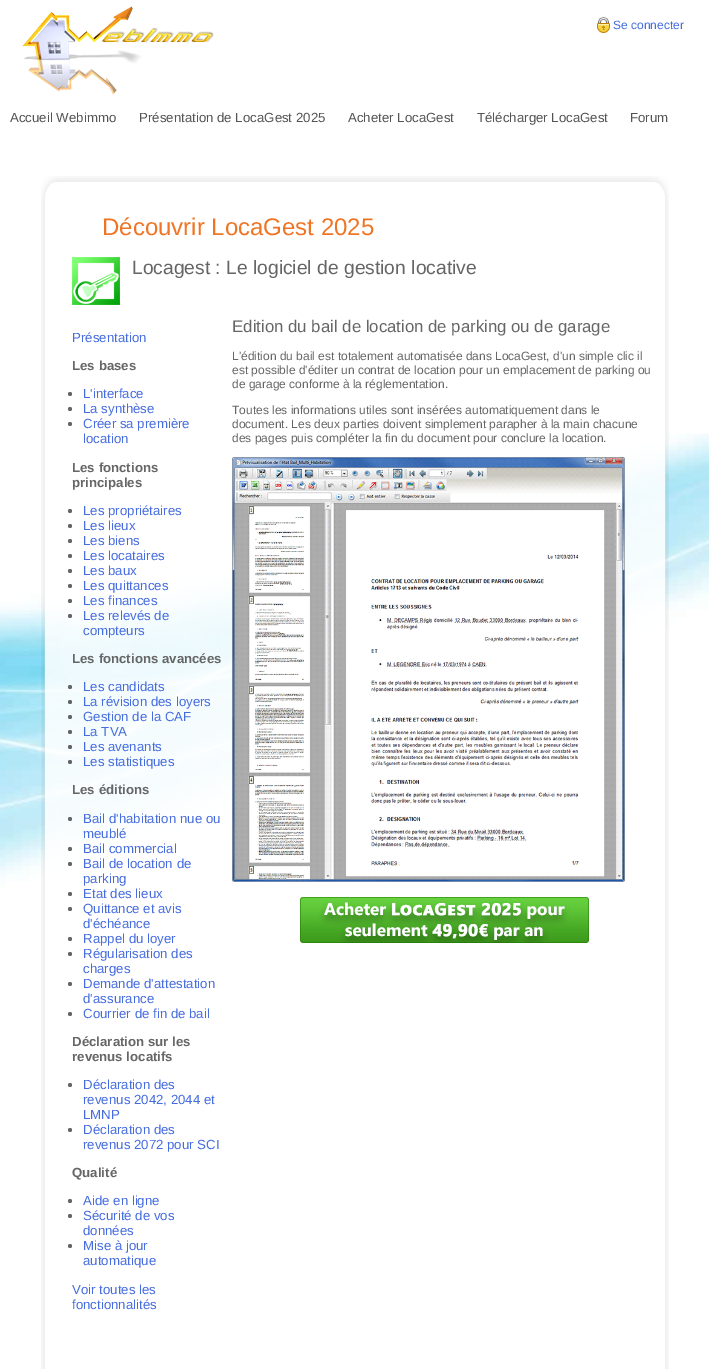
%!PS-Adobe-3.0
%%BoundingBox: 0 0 709 1369
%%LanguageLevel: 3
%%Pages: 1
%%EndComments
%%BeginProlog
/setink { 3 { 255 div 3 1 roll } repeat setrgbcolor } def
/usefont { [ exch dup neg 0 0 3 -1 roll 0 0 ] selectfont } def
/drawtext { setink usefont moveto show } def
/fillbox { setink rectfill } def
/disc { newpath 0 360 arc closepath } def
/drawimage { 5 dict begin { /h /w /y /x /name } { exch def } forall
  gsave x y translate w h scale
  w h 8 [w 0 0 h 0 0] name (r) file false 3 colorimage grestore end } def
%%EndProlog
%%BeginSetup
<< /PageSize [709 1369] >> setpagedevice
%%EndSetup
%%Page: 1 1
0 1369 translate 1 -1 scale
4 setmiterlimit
0 0 709 1369 255 255 255 fillbox
(assets/img1.rgb) 0 433 709 455 drawimage
(assets/img2.rgb) 22 6 192 89 drawimage
(assets/img3.rgb) 597 17 13 16 drawimage
(Se connecter) 613 29 /LiberationSans-Regular 12 70 109 223 drawtext
(Accueil Webimmo) 10 122 /LiberationSans-Regular 13.25 84 84 84 drawtext
(Présentation de LocaGest 2025) 139 122 /LiberationSans-Regular 13.25 84 84 84 drawtext
(Acheter LocaGest) 348 122 /LiberationSans-Regular 13.25 84 84 84 drawtext
(Télécharger LocaGest) 477 122 /LiberationSans-Regular 13.25 84 84 84 drawtext
(Forum) 630 122 /LiberationSans-Regular 13.25 84 84 84 drawtext
(assets/img4.rgb) 41 176 628 24 drawimage
(assets/img5.rgb) 41 200 628 1166 drawimage
(Découvrir LocaGest 2025) 102 235 /LiberationSans-Regular 24 239 117 37 drawtext
(assets/img6.rgb) 72 257 48 48 drawimage
(Locagest : Le logiciel de gestion locative) 132 274 /LiberationSans-Regular 19.25 102 102 102 drawtext
(Présentation) 72 342 /LiberationSans-Regular 13.25 70 109 223 drawtext
(Les bases) 72 370 /LiberationSans-Bold 13.25 102 102 102 drawtext
70 394 2 disc fill
(L'interface) 83 398 /LiberationSans-Regular 13.25 70 109 223 drawtext
102 102 102 setink
70 409 2 disc fill
(La synthèse) 83 413 /LiberationSans-Regular 13.25 70 109 223 drawtext
102 102 102 setink
70 424 2 disc fill
(Créer sa première) 83 428 /LiberationSans-Regular 13.25 70 109 223 drawtext
(location) 83 443 /LiberationSans-Regular 13.25 70 109 223 drawtext
(Les fonctions) 72 472 /LiberationSans-Bold 13.25 102 102 102 drawtext
(principales) 72 487 /LiberationSans-Bold 13.25 102 102 102 drawtext
70 511 2 disc fill
(Les propriétaires) 83 515 /LiberationSans-Regular 13.25 70 109 223 drawtext
102 102 102 setink
70 526 2 disc fill
(Les lieux) 83 530 /LiberationSans-Regular 13.25 70 109 223 drawtext
102 102 102 setink
70 541 2 disc fill
(Les biens) 83 545 /LiberationSans-Regular 13.25 70 109 223 drawtext
102 102 102 setink
70 556 2 disc fill
(Les locataires) 83 560 /LiberationSans-Regular 13.25 70 109 223 drawtext
102 102 102 setink
70 571 2 disc fill
(Les baux) 83 575 /LiberationSans-Regular 13.25 70 109 223 drawtext
102 102 102 setink
70 586 2 disc fill
(Les quittances) 83 590 /LiberationSans-Regular 13.25 70 109 223 drawtext
102 102 102 setink
70 601 2 disc fill
(Les finances) 83 605 /LiberationSans-Regular 13.25 70 109 223 drawtext
102 102 102 setink
70 616 2 disc fill
(Les relevés de) 83 620 /LiberationSans-Regular 13.25 70 109 223 drawtext
(compteurs) 83 635 /LiberationSans-Regular 13.25 70 109 223 drawtext
(Les fonctions avancées) 72 663 /LiberationSans-Bold 13.25 102 102 102 drawtext
70 687 2 disc fill
(Les candidats) 83 691 /LiberationSans-Regular 13.25 70 109 223 drawtext
102 102 102 setink
70 702 2 disc fill
(La révision des loyers) 83 706 /LiberationSans-Regular 13.25 70 109 223 drawtext
102 102 102 setink
70 717 2 disc fill
(Gestion de la CAF) 83 721 /LiberationSans-Regular 13.25 70 109 223 drawtext
102 102 102 setink
70 732 2 disc fill
(La TVA) 83 736 /LiberationSans-Regular 13.25 70 109 223 drawtext
102 102 102 setink
70 747 2 disc fill
(Les avenants) 83 751 /LiberationSans-Regular 13.25 70 109 223 drawtext
102 102 102 setink
70 762 2 disc fill
(Les statistiques) 83 766 /LiberationSans-Regular 13.25 70 109 223 drawtext
(Les éditions) 72 794 /LiberationSans-Bold 13.25 102 102 102 drawtext
70 819 2 disc fill
(Bail d'habitation nue ou) 83 823 /LiberationSans-Regular 13.25 70 109 223 drawtext
(meublé) 83 838 /LiberationSans-Regular 13.25 70 109 223 drawtext
102 102 102 setink
70 849 2 disc fill
(Bail commercial) 83 853 /LiberationSans-Regular 13.25 70 109 223 drawtext
102 102 102 setink
70 864 2 disc fill
(Bail de location de) 83 868 /LiberationSans-Regular 13.25 70 109 223 drawtext
(parking) 83 883 /LiberationSans-Regular 13.25 70 109 223 drawtext
102 102 102 setink
70 894 2 disc fill
(Etat des lieux) 83 898 /LiberationSans-Regular 13.25 70 109 223 drawtext
102 102 102 setink
70 909 2 disc fill
(Quittance et avis) 83 913 /LiberationSans-Regular 13.25 70 109 223 drawtext
(d'échéance) 83 928 /LiberationSans-Regular 13.25 70 109 223 drawtext
102 102 102 setink
70 939 2 disc fill
(Rappel du loyer) 83 943 /LiberationSans-Regular 13.25 70 109 223 drawtext
102 102 102 setink
70 954 2 disc fill
(Régularisation des) 83 958 /LiberationSans-Regular 13.25 70 109 223 drawtext
(charges) 83 973 /LiberationSans-Regular 13.25 70 109 223 drawtext
102 102 102 setink
70 984 2 disc fill
(Demande d'attestation) 83 988 /LiberationSans-Regular 13.25 70 109 223 drawtext
(d'assurance) 83 1003 /LiberationSans-Regular 13.25 70 109 223 drawtext
102 102 102 setink
70 1014 2 disc fill
(Courrier de fin de bail) 83 1018 /LiberationSans-Regular 13.25 70 109 223 drawtext
(Déclaration sur les) 72 1046 /LiberationSans-Bold 13.25 102 102 102 drawtext
(revenus locatifs) 72 1061 /LiberationSans-Bold 13.25 102 102 102 drawtext
70 1085 2 disc fill
(Déclaration des) 83 1089 /LiberationSans-Regular 13.25 70 109 223 drawtext
(revenus 2042, 2044 et) 83 1104 /LiberationSans-Regular 13.25 70 109 223 drawtext
(LMNP) 83 1119 /LiberationSans-Regular 13.25 70 109 223 drawtext
102 102 102 setink
70 1130 2 disc fill
(Déclaration des) 83 1134 /LiberationSans-Regular 13.25 70 109 223 drawtext
(revenus 2072 pour SCI) 83 1149 /LiberationSans-Regular 13.25 70 109 223 drawtext
(Qualité) 72 1177 /LiberationSans-Bold 13.25 102 102 102 drawtext
70 1201 2 disc fill
(Aide en ligne) 83 1205 /LiberationSans-Regular 13.25 70 109 223 drawtext
102 102 102 setink
70 1216 2 disc fill
(Sécurité de vos) 83 1220 /LiberationSans-Regular 13.25 70 109 223 drawtext
(données) 83 1235 /LiberationSans-Regular 13.25 70 109 223 drawtext
102 102 102 setink
70 1246 2 disc fill
(Mise à jour) 83 1250 /LiberationSans-Regular 13.25 70 109 223 drawtext
(automatique) 83 1265 /LiberationSans-Regular 13.25 70 109 223 drawtext
(Voir toutes les) 72 1294 /LiberationSans-Regular 13.25 70 109 223 drawtext
(fonctionnalités) 72 1309 /LiberationSans-Regular 13.25 70 109 223 drawtext
(Edition du bail de location de parking ou de garage) 232 332 /LiberationSans-Regular 16.8 102 102 102 drawtext
(L'édition du bail est totalement automatisée dans LocaGest, d'un simple clic il) 232 360 /LiberationSans-Regular 12 102 102 102 drawtext
(est possible d'éditer un contrat de location pour un emplacement de parking ou) 232 374 /LiberationSans-Regular 12 102 102 102 drawtext
(de garage conforme à la réglementation.) 232 388 /LiberationSans-Regular 12 102 102 102 drawtext
(Toutes les informations utiles sont insérées automatiquement dans le) 232 414 /LiberationSans-Regular 12 102 102 102 drawtext
(document. Les deux parties doivent simplement parapher à la main chacune) 232 428 /LiberationSans-Regular 12 102 102 102 drawtext
(des pages puis compléter la fin du document pour conclure la location.) 232 442 /LiberationSans-Regular 12 102 102 102 drawtext
(assets/img7.rgb) 232 457 393 425 drawimage
(assets/img8.rgb) 300 897 289 46 drawimage
(assets/img9.rgb) 41 1366 628 3 drawimage
showpage
%%EOF
